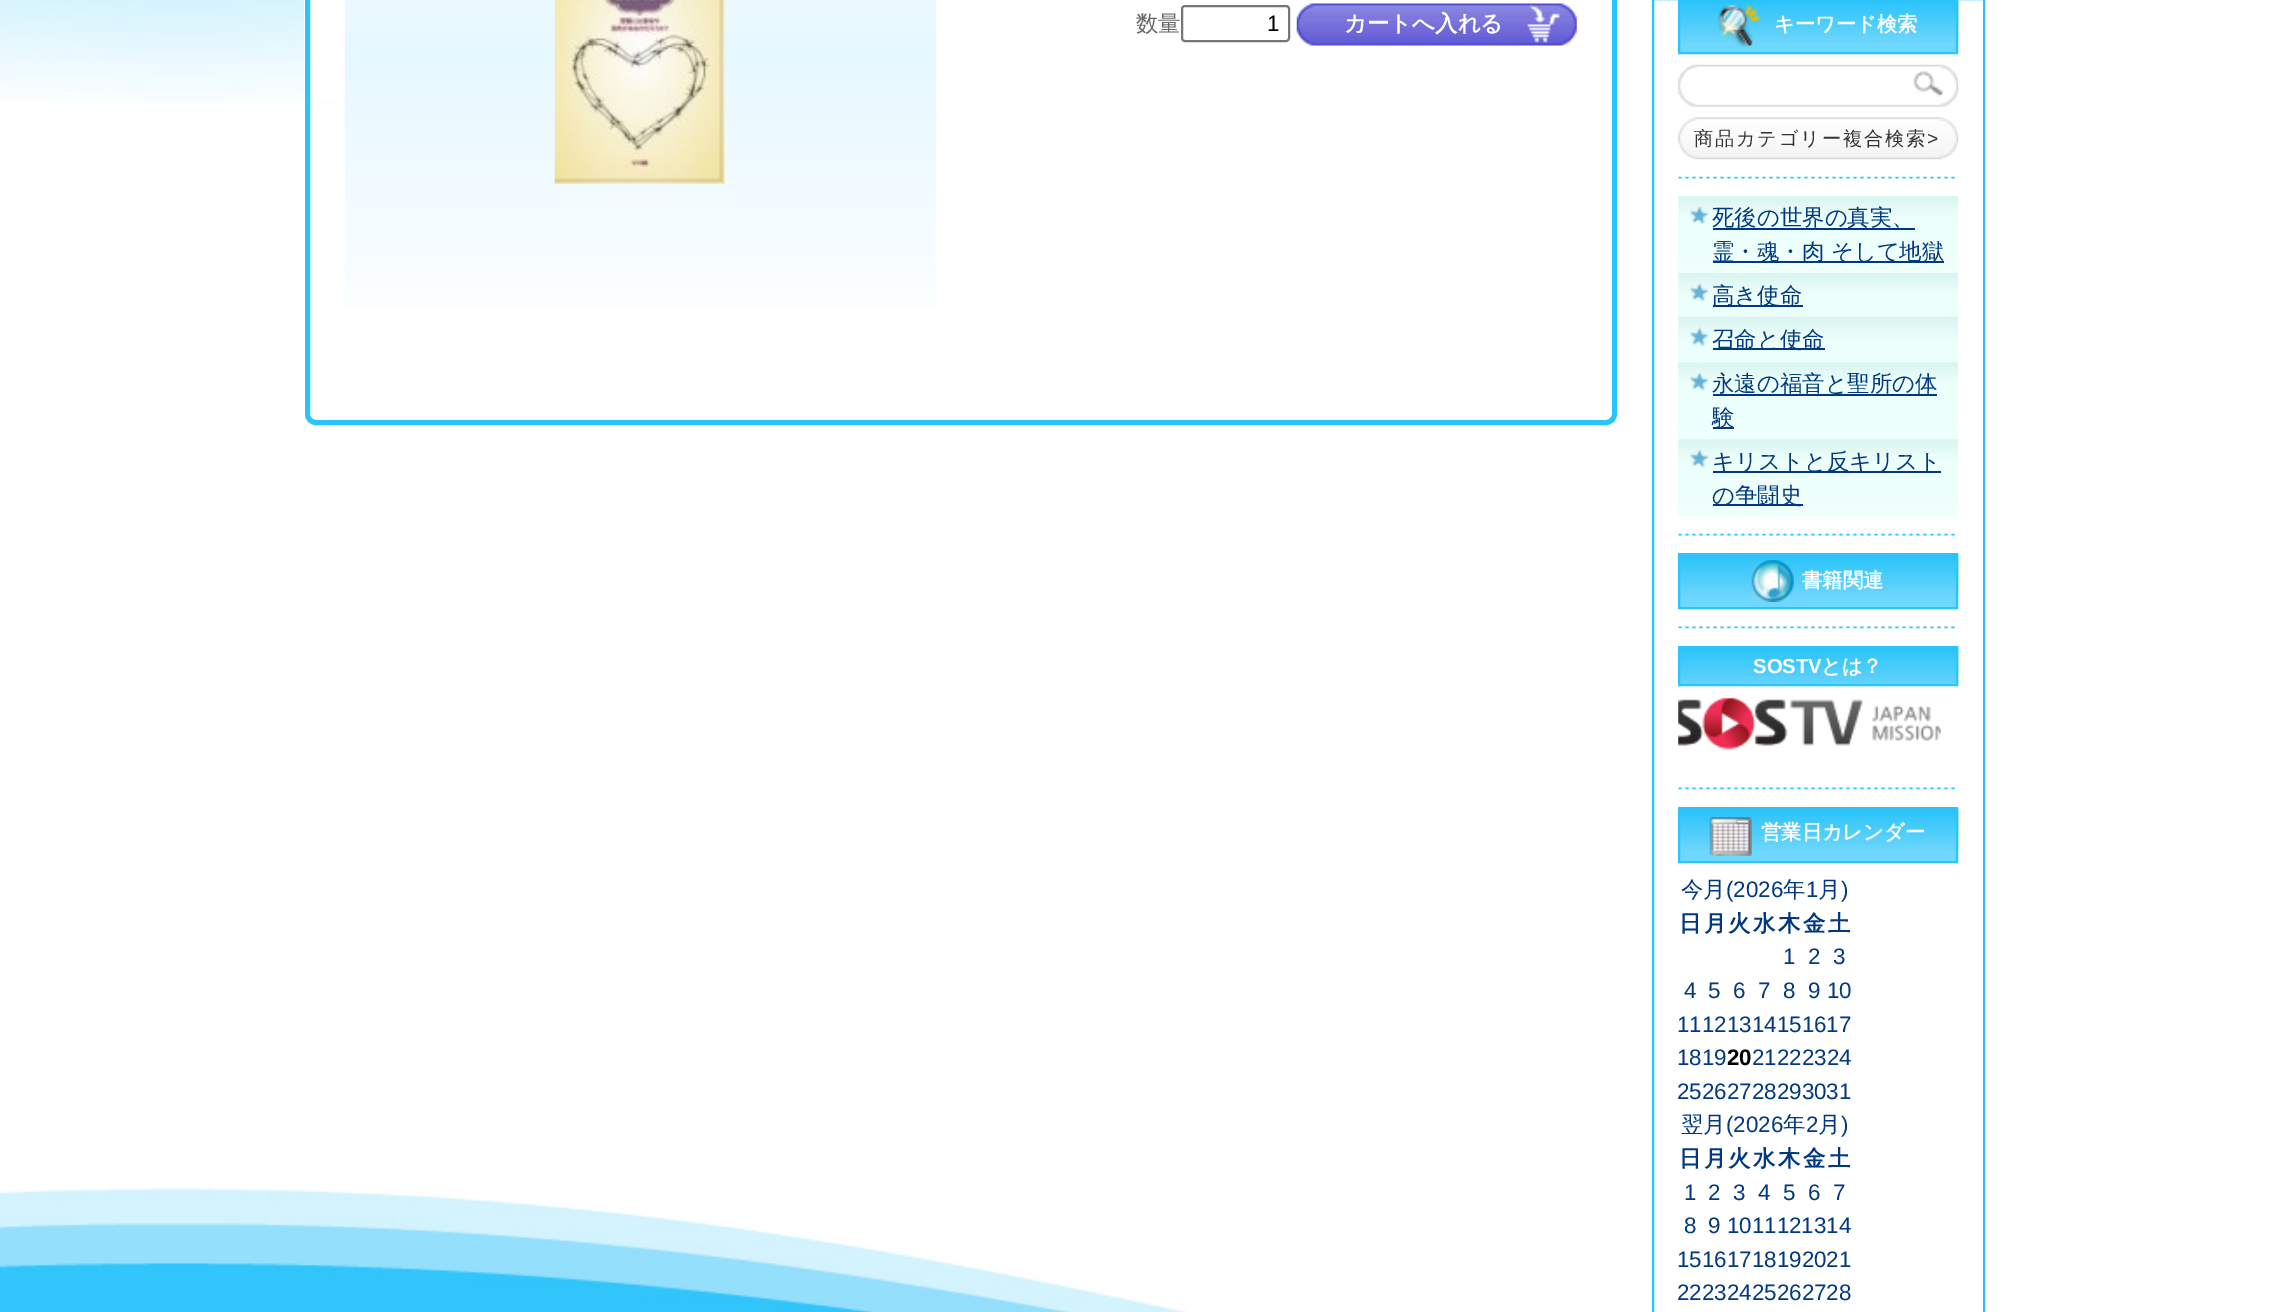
%!PS-Adobe-3.0
%%BoundingBox: 0 0 2287 1312
%%LanguageLevel: 3
%%Pages: 1
%%EndComments
%%BeginProlog
/setink { 3 { 255 div 3 1 roll } repeat setrgbcolor } def
/usefont { [ exch dup neg 0 0 3 -1 roll 0 0 ] selectfont } def
/drawtext { setink usefont moveto show } def
/fillbox { setink rectfill } def
/rrect { 5 dict begin { /r /h /w /y /x } { exch def } forall
  x r add y moveto x w add y 2 copy h add r arct x w add y h add x 1 index r arct
  x y h add x y r arct x y 2 copy exch w add exch r arct closepath end } def
/drawimage { 5 dict begin { /h /w /y /x /name } { exch def } forall
  gsave x y translate w h scale
  w h 8 [w 0 0 h 0 0] name (r) file false 3 colorimage grestore end } def
%%EndProlog
%%BeginSetup
<< /PageSize [2287 1312] >> setpagedevice
%%EndSetup
%%Page: 1 1
0 1312 translate 1 -1 scale
4 setmiterlimit
0 0 2287 1312 255 255 255 fillbox
(assets/img1.rgb) 0 0 1081 103 drawimage
(assets/img2.rgb) 0 1188 1186 124 drawimage
(assets/img3.rgb) 316 1208 871 104 drawimage
304 0 777 100 255 255 255 fillbox
42 196 252 setink
5 setlinewidth
307.5 -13.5 1307 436 8.5 rrect stroke
(assets/img4.rgb) 344 0 593 308 drawimage
(assets/img5.rgb) 554 0 171 184 drawimage
(数量) 1136 31 /WenQuanYiZenHei-Medium 22.4 102 102 102 drawtext
118 118 118 setink
2 setlinewidth
1182 6 107 35 3 rrect stroke
(1) 1267 31 /LiberationSans-Regular 22.4 0 0 0 drawtext
(assets/img6.rgb) 1296 3 281 43 drawimage
(カートへ入れる) 1344 31 /WenQuanYiZenHei-Bold 22.4 255 255 255 drawtext
42 196 252 setink
1653 -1 331 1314 rectstroke
(assets/img7.rgb) 1678 176 281 3 drawimage
1680 42 276 10 110 215 253 fillbox
(assets/img8.rgb) 1680 0 279 42 drawimage
43 196 252 setink
1679 -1 278 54 rectstroke
(assets/img9.rgb) 1718 5 42 42 drawimage
(キーワード検索) 1774 31 /WenQuanYiZenHei-Bold 20.25 255 255 255 drawtext
(assets/img10.rgb) 1678 64 281 43 drawimage
(assets/img11.rgb) 1912 70 32 27 drawimage
(assets/img12.rgb) 1678 117 281 43 drawimage
/WenQuanYiZenHei-Medium 19.25 usefont
51 51 51 setink
1694 145 moveto 1.75 0 (商品カテゴリー複合検索) ashow
/LiberationSans-Regular 19.25 usefont
1927 145 moveto 1.75 0 (>) ashow
(assets/img7.rgb) 1678 533 281 3 drawimage
(assets/img13.rgb) 1678 196 281 77 drawimage
1713 228 202 2 0 56 129 fillbox
(死後の世界の真実、) 1712 225 /WenQuanYiZenHei-Medium 22.4 0 56 129 drawtext
1713 261 231 2 0 56 129 fillbox
(霊・魂・肉 そして地獄) 1712 259 /WenQuanYiZenHei-Medium 22.4 0 56 129 drawtext
1678 273 280 44 240 255 252 fillbox
(assets/img14.rgb) 1678 273 281 43 drawimage
1713 305 90 2 0 56 129 fillbox
(高き使命) 1712 303 /WenQuanYiZenHei-Medium 22.4 0 56 129 drawtext
(assets/img15.rgb) 1678 316 281 47 drawimage
1713 348 112 2 0 56 129 fillbox
(召命と使命) 1712 347 /WenQuanYiZenHei-Medium 22.4 0 56 129 drawtext
1678 362 280 77 240 255 252 fillbox
(assets/img16.rgb) 1678 362 281 78 drawimage
(永遠の福音と聖所の体) 1712 391 /WenQuanYiZenHei-Medium 22.4 0 56 129 drawtext
1713 394 224 2 0 56 129 fillbox
1713 427 21 2 0 56 129 fillbox
(験) 1712 425 /WenQuanYiZenHei-Medium 22.4 0 56 129 drawtext
1678 439 280 77 240 255 252 fillbox
(assets/img16.rgb) 1678 439 281 78 drawimage
1713 471 228 2 0 56 129 fillbox
(キリストと反キリスト) 1712 469 /WenQuanYiZenHei-Medium 22.4 0 56 129 drawtext
1713 504 90 2 0 56 129 fillbox
(の争闘史) 1712 503 /WenQuanYiZenHei-Medium 22.4 0 56 129 drawtext
(assets/img17.rgb) 1678 626 281 3 drawimage
1680 596 276 11 110 215 253 fillbox
(assets/img18.rgb) 1680 554 279 43 drawimage
43 196 252 setink
1679 554 278 54 rectstroke
(assets/img19.rgb) 1751 560 43 42 drawimage
(書籍関連) 1802 587 /WenQuanYiZenHei-Bold 20.25 255 255 255 drawtext
(assets/img17.rgb) 1678 787 281 3 drawimage
(assets/img20.rgb) 1680 647 279 39 drawimage
43 196 252 setink
1679 647 278 38 rectstroke
(SOSTV) 1753 673 /LiberationSans-Bold 20.25 255 255 255 drawtext
(とは？) 1821 673 /WenQuanYiZenHei-Bold 20.25 255 255 255 drawtext
(assets/img21.rgb) 1678 697 263 53 drawimage
1680 850 276 11 110 215 253 fillbox
(assets/img22.rgb) 1680 808 279 43 drawimage
43 196 252 setink
1679 808 278 54 rectstroke
(assets/img23.rgb) 1709 816 43 40 drawimage
(営業日カレンダー) 1761 839 /WenQuanYiZenHei-Bold 20.25 255 255 255 drawtext
(今月) 1681 897 /WenQuanYiZenHei-Medium 22.4 0 56 129 drawtext
(\(2026) 1726 897 /LiberationSans-Regular 22.4 0 56 129 drawtext
(年) 1783 897 /WenQuanYiZenHei-Medium 22.4 0 56 129 drawtext
(1) 1806 897 /LiberationSans-Regular 22.4 0 56 129 drawtext
(月) 1818 897 /WenQuanYiZenHei-Medium 22.4 0 56 129 drawtext
(\)) 1841 897 /LiberationSans-Regular 22.4 0 56 129 drawtext
(日) 1679 931 /WenQuanYiZenHei-Bold 22.4 0 56 129 drawtext
(月) 1704 931 /WenQuanYiZenHei-Bold 22.4 0 56 129 drawtext
(火) 1728 931 /WenQuanYiZenHei-Bold 22.4 0 56 129 drawtext
(水) 1753 931 /WenQuanYiZenHei-Bold 22.4 0 56 129 drawtext
(木) 1778 931 /WenQuanYiZenHei-Bold 22.4 0 56 129 drawtext
(金) 1803 931 /WenQuanYiZenHei-Bold 22.4 0 56 129 drawtext
(土) 1828 931 /WenQuanYiZenHei-Bold 22.4 0 56 129 drawtext
(1) 1783 964 /LiberationSans-Regular 22.4 0 56 129 drawtext
(2) 1808 964 /LiberationSans-Regular 22.4 0 56 129 drawtext
(3) 1833 964 /LiberationSans-Regular 22.4 0 56 129 drawtext
(4) 1684 998 /LiberationSans-Regular 22.4 0 56 129 drawtext
(5) 1708 998 /LiberationSans-Regular 22.4 0 56 129 drawtext
(6) 1733 998 /LiberationSans-Regular 22.4 0 56 129 drawtext
(7) 1758 998 /LiberationSans-Regular 22.4 0 56 129 drawtext
(8) 1783 998 /LiberationSans-Regular 22.4 0 56 129 drawtext
(9 10) 1808 998 /LiberationSans-Regular 22.4 0 56 129 drawtext
(11121314151617) 1677 1032 /LiberationSans-Regular 22.4 0 56 129 drawtext
(1819) 1677 1065 /LiberationSans-Regular 22.4 0 56 129 drawtext
(20) 1727 1065 /LiberationSans-Bold 22.4 0 0 0 drawtext
(21222324) 1752 1065 /LiberationSans-Regular 22.4 0 56 129 drawtext
(25262728293031) 1677 1099 /LiberationSans-Regular 22.4 0 56 129 drawtext
(翌月) 1681 1132 /WenQuanYiZenHei-Medium 22.4 0 56 129 drawtext
(\(2026) 1726 1132 /LiberationSans-Regular 22.4 0 56 129 drawtext
(年) 1783 1132 /WenQuanYiZenHei-Medium 22.4 0 56 129 drawtext
(2) 1806 1132 /LiberationSans-Regular 22.4 0 56 129 drawtext
(月) 1818 1132 /WenQuanYiZenHei-Medium 22.4 0 56 129 drawtext
(\)) 1841 1132 /LiberationSans-Regular 22.4 0 56 129 drawtext
(日) 1679 1166 /WenQuanYiZenHei-Bold 22.4 0 56 129 drawtext
(月) 1704 1166 /WenQuanYiZenHei-Bold 22.4 0 56 129 drawtext
(火) 1728 1166 /WenQuanYiZenHei-Bold 22.4 0 56 129 drawtext
(水) 1753 1166 /WenQuanYiZenHei-Bold 22.4 0 56 129 drawtext
(木) 1778 1166 /WenQuanYiZenHei-Bold 22.4 0 56 129 drawtext
(金) 1803 1166 /WenQuanYiZenHei-Bold 22.4 0 56 129 drawtext
(土) 1828 1166 /WenQuanYiZenHei-Bold 22.4 0 56 129 drawtext
(1) 1684 1200 /LiberationSans-Regular 22.4 0 56 129 drawtext
(2) 1708 1200 /LiberationSans-Regular 22.4 0 56 129 drawtext
(3) 1733 1200 /LiberationSans-Regular 22.4 0 56 129 drawtext
(4) 1758 1200 /LiberationSans-Regular 22.4 0 56 129 drawtext
(5) 1783 1200 /LiberationSans-Regular 22.4 0 56 129 drawtext
(6) 1808 1200 /LiberationSans-Regular 22.4 0 56 129 drawtext
(7) 1833 1200 /LiberationSans-Regular 22.4 0 56 129 drawtext
(8) 1684 1233 /LiberationSans-Regular 22.4 0 56 129 drawtext
(9 1011121314) 1708 1233 /LiberationSans-Regular 22.4 0 56 129 drawtext
(15161718192021) 1677 1267 /LiberationSans-Regular 22.4 0 56 129 drawtext
(22232425262728) 1677 1300 /LiberationSans-Regular 22.4 0 56 129 drawtext
showpage
%%EOF
